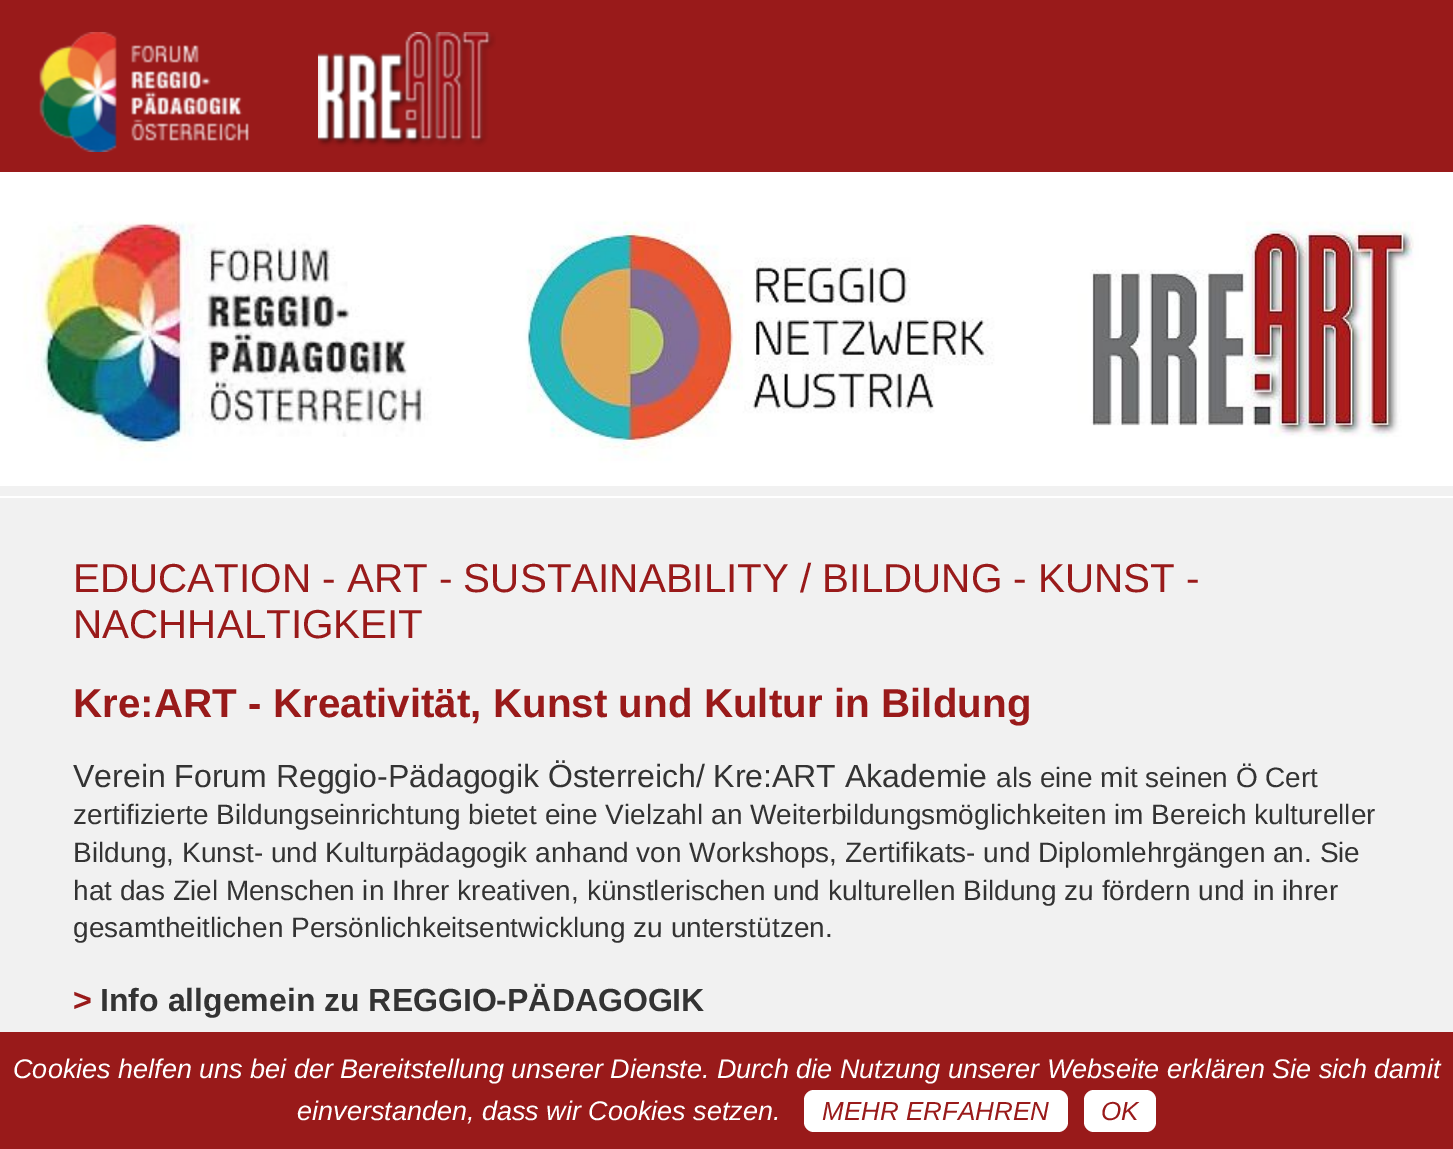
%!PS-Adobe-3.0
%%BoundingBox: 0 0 1453 1149
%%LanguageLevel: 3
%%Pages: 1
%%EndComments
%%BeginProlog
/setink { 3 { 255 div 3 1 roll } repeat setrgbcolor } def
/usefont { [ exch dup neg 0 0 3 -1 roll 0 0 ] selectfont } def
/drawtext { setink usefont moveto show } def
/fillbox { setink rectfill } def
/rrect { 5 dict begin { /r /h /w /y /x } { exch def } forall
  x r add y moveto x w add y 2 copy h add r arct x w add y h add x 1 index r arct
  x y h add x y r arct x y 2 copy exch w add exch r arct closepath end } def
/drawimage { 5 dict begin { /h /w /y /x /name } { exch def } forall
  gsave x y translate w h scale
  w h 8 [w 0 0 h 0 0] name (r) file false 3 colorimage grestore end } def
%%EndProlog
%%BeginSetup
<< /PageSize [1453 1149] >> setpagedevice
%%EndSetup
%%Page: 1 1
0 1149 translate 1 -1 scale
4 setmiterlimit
0 0 1453 1149 241 241 241 fillbox
0 0 1453 172 153 26 26 fillbox
0 172 1453 2 255 255 255 fillbox
(assets/img1.rgb) 39 32 210 120 drawimage
(assets/img2.rgb) 318 32 178 115 drawimage
0 496 1453 2 255 255 255 fillbox
(assets/img3.rgb) 0 174 1453 312 drawimage
(EDUCATION - ART - SUSTAINABILITY) 73 592 /LiberationSans-Regular 40.4 153 26 26 drawtext
(/ BILDUNG - KUNST -) 800 592 /LiberationSans-Regular 40.4 153 26 26 drawtext
(NACHHALTIGKEIT) 73 638 /LiberationSans-Regular 40.4 153 26 26 drawtext
(Kre:ART - Kreativität, Kunst und Kultur in Bildung) 73 717 /LiberationSans-Bold 40.4 153 26 26 drawtext
(Verein Forum Reggio-Pädagogik Österreich/ Kre:ART Akademie) 73 787 /LiberationSans-Regular 32 51 51 51 drawtext
(als eine mit seinen Ö Cert) 996 787 /LiberationSans-Regular 28 51 51 51 drawtext
(zertifizierte Bildungseinrichtung bietet eine Vielzahl an Weiterbildungsmöglichkeiten im Bereich kultureller) 73 824 /LiberationSans-Regular 28 51 51 51 drawtext
(Bildung, Kunst- und Kulturpädagogik anhand von Workshops, Zertifikats- und Diplomlehrgängen an. Sie) 73 862 /LiberationSans-Regular 28 51 51 51 drawtext
(hat das Ziel Menschen in Ihrer kreativen, künstlerischen und kulturellen Bildung zu fördern und in ihrer) 73 900 /LiberationSans-Regular 28 51 51 51 drawtext
(gesamtheitlichen Persönlichkeitsentwicklung zu unterstützen.) 73 937 /LiberationSans-Regular 28 51 51 51 drawtext
(>) 73 1011 /LiberationSans-Bold 32 153 26 26 drawtext
(Info allgemein zu REGGIO-PÄDAGOGIK) 100 1011 /LiberationSans-Bold 32 51 51 51 drawtext
0 1032 1453 117 153 26 26 fillbox
(Cookies helfen uns bei der Bereitstellung unserer Dienste. Durch die Nutzung unserer Webseite erklären Sie sich damit) 13 1078 /LiberationSans-Italic 27 255 255 255 drawtext
(einverstanden, dass wir Cookies setzen.) 297 1120 /LiberationSans-Italic 27 255 255 255 drawtext
804 1090 264 42 10 rrect fill
(MEHR ERFAHREN) 822 1120 /LiberationSans-Italic 26 153 26 26 drawtext
255 255 255 setink
1084 1090 72 42 10 rrect fill
(OK) 1101 1120 /LiberationSans-Italic 26 153 26 26 drawtext
showpage
%%EOF
